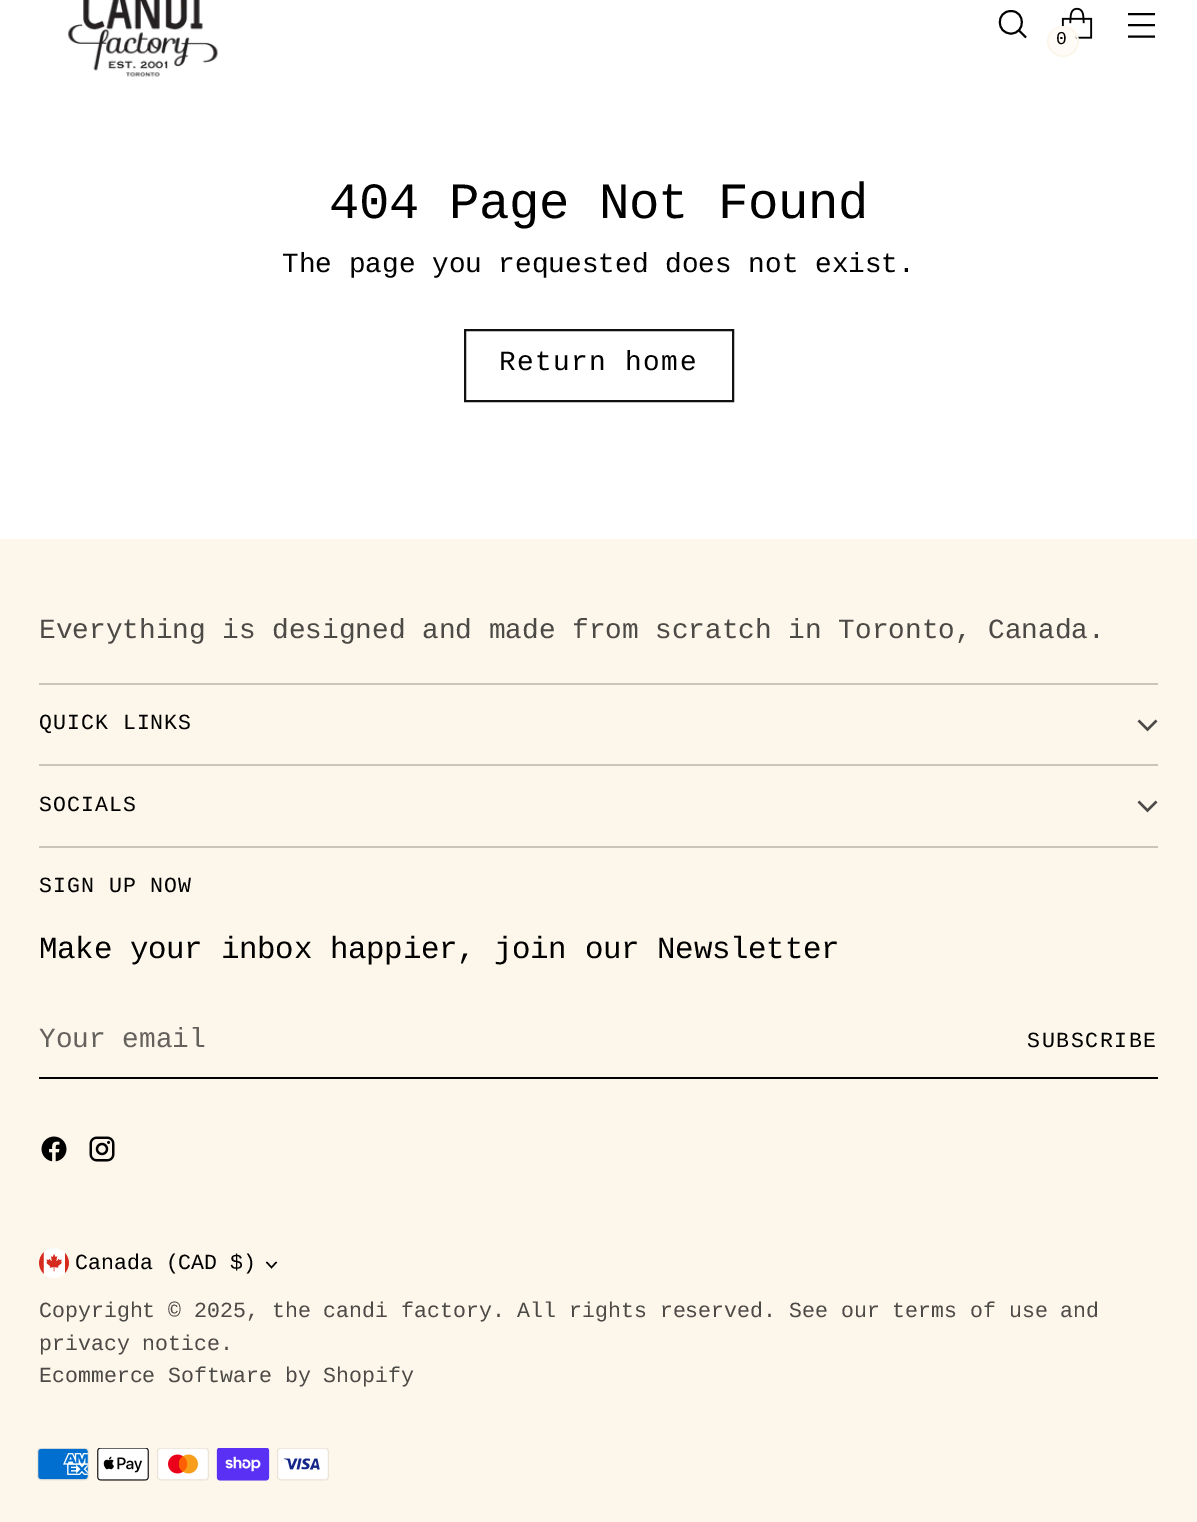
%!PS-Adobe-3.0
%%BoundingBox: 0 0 1197 1522
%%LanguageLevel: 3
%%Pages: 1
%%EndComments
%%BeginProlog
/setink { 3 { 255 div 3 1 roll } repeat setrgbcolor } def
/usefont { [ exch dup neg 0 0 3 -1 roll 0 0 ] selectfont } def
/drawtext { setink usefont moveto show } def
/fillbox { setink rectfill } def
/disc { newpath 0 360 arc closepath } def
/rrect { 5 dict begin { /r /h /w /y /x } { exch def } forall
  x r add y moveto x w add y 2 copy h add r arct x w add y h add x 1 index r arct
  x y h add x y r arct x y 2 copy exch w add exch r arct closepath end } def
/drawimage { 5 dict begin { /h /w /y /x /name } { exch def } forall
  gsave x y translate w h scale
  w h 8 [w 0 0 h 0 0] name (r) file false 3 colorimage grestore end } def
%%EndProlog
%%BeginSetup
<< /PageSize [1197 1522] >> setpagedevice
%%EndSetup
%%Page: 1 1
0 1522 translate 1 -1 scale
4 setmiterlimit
0 0 1197 1522 255 255 255 fillbox
(assets/img1.rgb) 67 0 151 77 drawimage
0 0 0 setink
1.9 setlinewidth
1 setlinecap
1011 33.5 moveto 1025.5 33.5 1025.5 11 1011 11 curveto 996 11 996 33.5 1011 33.5 curveto closepath stroke
0 setlinecap
1019 30.5 moveto 1026 37.5 lineto stroke
(assets/img2.rgb) 1061 7 32 32 drawimage
253 246 234 setink
2 setlinewidth
1048 27 30 29 14.5 rrect stroke
255 252 247 setink
1062.5 40.5 13.5 disc fill
(0) 1056 44 /LiberationMono-Regular 18 0 0 0 drawtext
1.9 setlinewidth
1128 25 moveto 1155 25 lineto 1128 14 moveto 1155 14 lineto 1128 36.5 moveto 1155 36.5 lineto stroke
/LiberationMono-Regular 50.75 usefont
329 218 moveto -0.5 0 (404 Page Not Found) ashow
(The page you requested does not exist.) 282 272 /LiberationMono-Regular 27.75 0 0 0 drawtext
17 17 17 setink
2 setlinewidth
465 330 268 71 rectstroke
0 0 0 setink
499 370 moveto 1.4 0 (Return home) ashow
0 539 1197 983 253 246 234 fillbox
39 683 1119 2 202 197 187 fillbox
(Everything is designed and made from scratch in Toronto, Canada.) 39 638 /LiberationMono-Regular 27.75 76 74 70 drawtext
39 764 1119 2 202 197 187 fillbox
/LiberationMono-Regular 21.55 usefont
0 0 0 setink
39 729 moveto 1 0 (QUICK LINKS) ashow
76 74 70 setink
2.4 setlinewidth
1138.5 720.5 moveto 1147.5 729.5 lineto 1156.5 720.5 lineto stroke
39 846 1119 2 202 197 187 fillbox
0 0 0 setink
39 811 moveto 1 0 (SOCIALS) ashow
76 74 70 setink
1138.5 801.5 moveto 1147.5 810.5 lineto 1156.5 801.5 lineto stroke
0 0 0 setink
39 892 moveto 1 0 (SIGN UP NOW) ashow
/LiberationMono-Regular 30.8 usefont
39 958 moveto -0.3 0 (Make your inbox happier, join our Newsletter) ashow
39 1077 1119 2 0 0 0 fillbox
(Your email) 39 1047 /LiberationMono-Regular 27.75 101 98 94 drawtext
/LiberationMono-Regular 21.55 usefont
0 0 0 setink
1027 1047 moveto 1.6 0 (SUBSCRIBE) ashow
(assets/img3.rgb) 41 1136 26 26 drawimage
(assets/img4.rgb) 89 1136 26 26 drawimage
(assets/img5.rgb) 39 1248 30 30 drawimage
(Canada \(CAD $\)) 75 1269 /LiberationMono-Regular 21.55 0 0 0 drawtext
1.4 setlinewidth
266.5 1262 moveto 271.5 1267.5 lineto 276.5 1262 lineto stroke
(Copyright © 2025, the candi factory. All rights reserved. See our terms of use and) 39 1317 /LiberationMono-Regular 21.55 76 74 70 drawtext
(privacy notice.) 39 1350 /LiberationMono-Regular 21.55 76 74 70 drawtext
(Ecommerce Software by Shopify) 39 1382 /LiberationMono-Regular 21.55 76 74 70 drawtext
(assets/img6.rgb) 37 1448 52 33 drawimage
(assets/img7.rgb) 97 1448 52 33 drawimage
(assets/img8.rgb) 157 1448 52 33 drawimage
(assets/img9.rgb) 216 1448 54 33 drawimage
(assets/img10.rgb) 277 1448 52 33 drawimage
showpage
%%EOF
